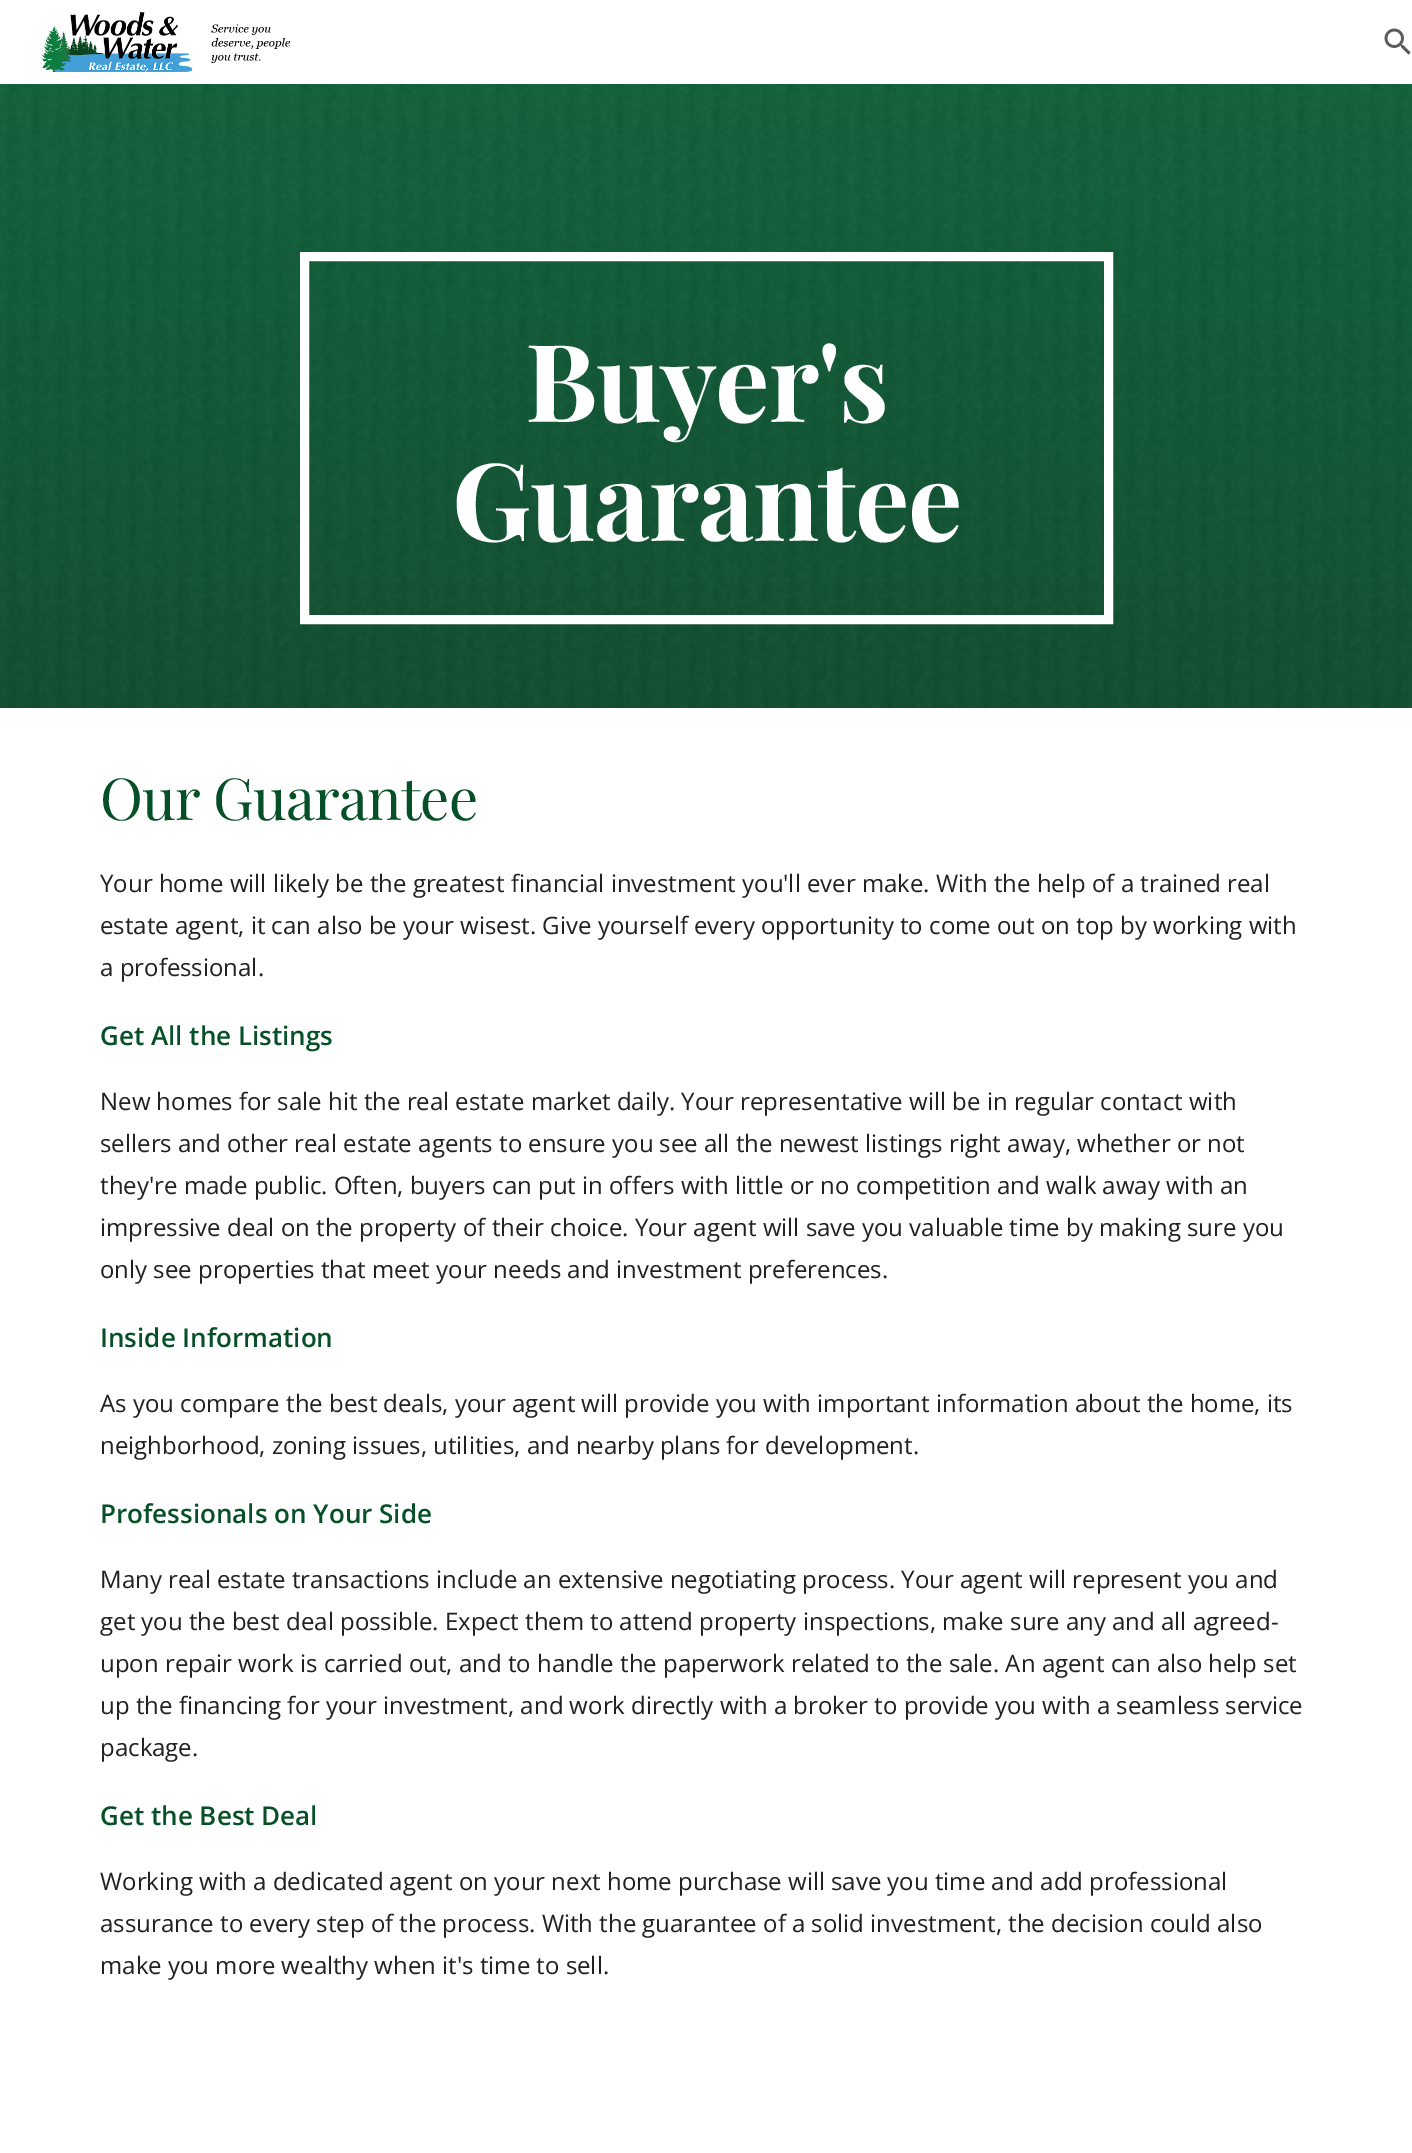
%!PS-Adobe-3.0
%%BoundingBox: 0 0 1412 2153
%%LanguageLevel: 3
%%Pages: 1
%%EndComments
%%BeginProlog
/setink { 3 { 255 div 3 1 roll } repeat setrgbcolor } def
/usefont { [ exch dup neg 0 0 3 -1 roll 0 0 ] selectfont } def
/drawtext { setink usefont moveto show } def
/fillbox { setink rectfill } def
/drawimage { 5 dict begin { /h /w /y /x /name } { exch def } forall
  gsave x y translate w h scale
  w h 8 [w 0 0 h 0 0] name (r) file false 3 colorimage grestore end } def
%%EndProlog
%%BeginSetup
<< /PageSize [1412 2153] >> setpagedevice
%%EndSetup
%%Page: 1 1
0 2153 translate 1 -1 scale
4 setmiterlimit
0 0 1412 2153 255 255 255 fillbox
(assets/img1.rgb) 42 12 249 60 drawimage
(assets/img2.rgb) 1384 28 27 27 drawimage
(assets/img3.rgb) 0 84 1412 624 drawimage
9 setlinewidth
304.5 256.5 804 363 rectstroke
/PlayfairDisplay-Bold 108 usefont
525 422 moveto -1.25 0 (Buyer's) ashow
452 541 moveto -1.25 0 (Guarantee) ashow
/PlayfairDisplay-Regular 58 usefont
6 80 39 setink
100 820 moveto -0.9 0 (Our Guarantee) ashow
(Your home will likely be the greatest financial investment you'll ever make. With the help of a trained real) 100 892 /OpenSans-Regular 24 33 33 33 drawtext
(estate agent, it can also be your wisest. Give yourself every opportunity to come out on top by working with) 100 934 /OpenSans-Regular 24 33 33 33 drawtext
(a professional.) 100 976 /OpenSans-Regular 24 33 33 33 drawtext
(Get All the Listings) 100 1045 /OpenSans-SemiBold 26 6 80 39 drawtext
(New homes for sale hit the real estate market daily. Your representative will be in regular contact with) 100 1110 /OpenSans-Regular 24 33 33 33 drawtext
(sellers and other real estate agents to ensure you see all the newest listings right away, whether or not) 100 1152 /OpenSans-Regular 24 33 33 33 drawtext
(they're made public. Often, buyers can put in offers with little or no competition and walk away with an) 100 1194 /OpenSans-Regular 24 33 33 33 drawtext
(impressive deal on the property of their choice. Your agent will save you valuable time by making sure you) 100 1236 /OpenSans-Regular 24 33 33 33 drawtext
(only see properties that meet your needs and investment preferences.) 100 1278 /OpenSans-Regular 24 33 33 33 drawtext
(Inside Information) 100 1347 /OpenSans-SemiBold 26 6 80 39 drawtext
(As you compare the best deals, your agent will provide you with important information about the home, its) 100 1412 /OpenSans-Regular 24 33 33 33 drawtext
(neighborhood, zoning issues, utilities, and nearby plans for development.) 100 1454 /OpenSans-Regular 24 33 33 33 drawtext
(Professionals on Your Side) 100 1523 /OpenSans-SemiBold 26 6 80 39 drawtext
(Many real estate transactions include an extensive negotiating process. Your agent will represent you and) 100 1588 /OpenSans-Regular 24 33 33 33 drawtext
(get you the best deal possible. Expect them to attend property inspections, make sure any and all agreed-) 100 1630 /OpenSans-Regular 24 33 33 33 drawtext
(upon repair work is carried out, and to handle the paperwork related to the sale. An agent can also help set) 100 1672 /OpenSans-Regular 24 33 33 33 drawtext
(up the financing for your investment, and work directly with a broker to provide you with a seamless service) 100 1714 /OpenSans-Regular 24 33 33 33 drawtext
(package.) 100 1756 /OpenSans-Regular 24 33 33 33 drawtext
(Get the Best Deal) 100 1825 /OpenSans-SemiBold 26 6 80 39 drawtext
(Working with a dedicated agent on your next home purchase will save you time and add professional) 100 1890 /OpenSans-Regular 24 33 33 33 drawtext
(assurance to every step of the process. With the guarantee of a solid investment, the decision could also) 100 1932 /OpenSans-Regular 24 33 33 33 drawtext
(make you more wealthy when it's time to sell.) 100 1974 /OpenSans-Regular 24 33 33 33 drawtext
showpage
%%EOF
